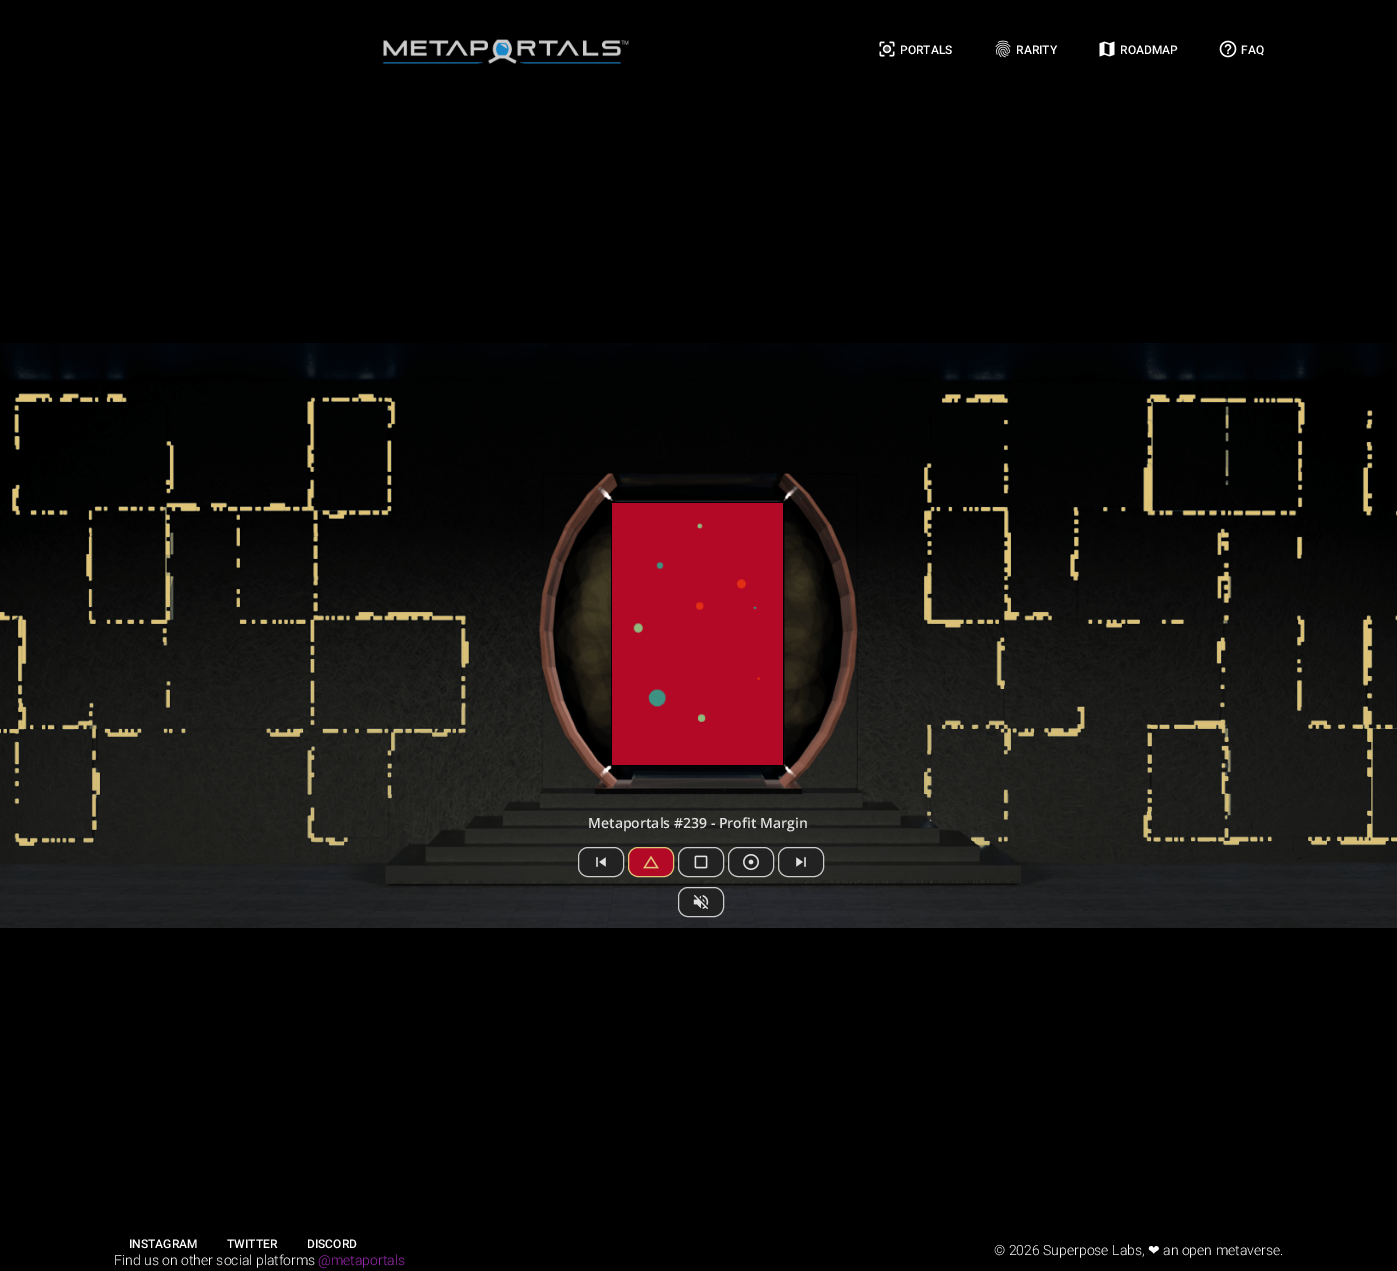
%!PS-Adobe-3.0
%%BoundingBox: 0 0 1397 1271
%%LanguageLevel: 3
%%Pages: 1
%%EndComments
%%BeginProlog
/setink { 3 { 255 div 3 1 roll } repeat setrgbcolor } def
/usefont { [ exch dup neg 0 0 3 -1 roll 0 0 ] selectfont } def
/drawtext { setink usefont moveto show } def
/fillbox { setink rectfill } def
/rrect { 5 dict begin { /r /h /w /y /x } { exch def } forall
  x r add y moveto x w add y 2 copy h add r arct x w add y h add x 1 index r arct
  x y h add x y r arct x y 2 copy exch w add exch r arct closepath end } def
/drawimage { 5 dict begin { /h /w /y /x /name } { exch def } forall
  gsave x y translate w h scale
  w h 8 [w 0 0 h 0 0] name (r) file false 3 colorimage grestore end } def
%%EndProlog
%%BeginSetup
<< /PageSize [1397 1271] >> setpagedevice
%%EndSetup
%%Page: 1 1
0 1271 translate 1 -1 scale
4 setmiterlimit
0 0 1397 1271 0 0 0 fillbox
(assets/img1.rgb) 383 39 246 26 drawimage
(assets/img2.rgb) 879 41 16 16 drawimage
(PORTALS) 900 54 /Roboto-Medium 12 255 255 255 drawtext
(assets/img3.rgb) 995 40 16 18 drawimage
(RARITY) 1016 54 /Roboto-Medium 12 255 255 255 drawtext
(assets/img4.rgb) 1099 41 16 16 drawimage
(ROADMAP) 1120 54 /Roboto-Medium 12 255 255 255 drawtext
(assets/img5.rgb) 1219 40 18 18 drawimage
(FAQ) 1241 54 /Roboto-Medium 12 255 255 255 drawtext
0 343 1397 530 224 196 120 fillbox
(assets/img6.rgb) 0 343 1397 585 drawimage
0 0 0 setink
611.5 502.5 172 263 rectstroke
612 503 171 262 179 9 39 fillbox
(assets/img7.rgb) 633 523 128 199 drawimage
(Metaportals #239 - Profit Margin) 588 828 /OpenSans-SemiBold 14 224 224 224 drawtext
34 34 34 setink
578.5 847.5 45 29 9.5 rrect gsave fill grestore
204 204 204 setink
stroke
(assets/img8.rgb) 596 857 10 10 drawimage
179 9 39 setink
628.5 847.5 45 29 9.5 rrect gsave fill grestore
224 196 120 setink
stroke
(assets/img9.rgb) 643 855 16 14 drawimage
34 34 34 setink
678.5 847.5 45 29 9.5 rrect gsave fill grestore
204 204 204 setink
stroke
(assets/img10.rgb) 694 855 14 14 drawimage
34 34 34 setink
728.5 847.5 45 29 9.5 rrect gsave fill grestore
204 204 204 setink
stroke
(assets/img11.rgb) 743 854 16 16 drawimage
34 34 34 setink
778.5 847.5 45 29 9.5 rrect gsave fill grestore
204 204 204 setink
stroke
(assets/img12.rgb) 796 857 10 10 drawimage
34 34 34 setink
678.5 887.5 45 29 9.5 rrect gsave fill grestore
204 204 204 setink
stroke
(assets/img13.rgb) 693 894 16 16 drawimage
(INSTAGRAM) 129 1248 /Roboto-Medium 12 255 255 255 drawtext
(TWITTER) 227 1248 /Roboto-Medium 12 255 255 255 drawtext
(DISCORD) 307 1248 /Roboto-Medium 12 255 255 255 drawtext
(Find us on other social platforms) 114 1265 /Roboto-Light 14 255 255 255 drawtext
(@metaportals) 318 1265 /Roboto-Light 14 156 39 176 drawtext
(© 2026 Superpose Labs,) 994 1255 /Roboto-Light 14 255 255 255 drawtext
(❤) 1148 1255 /DejaVuSans-Regular 14 255 255 255 drawtext
(an open metaverse.) 1163 1255 /Roboto-Light 14 255 255 255 drawtext
showpage
%%EOF
